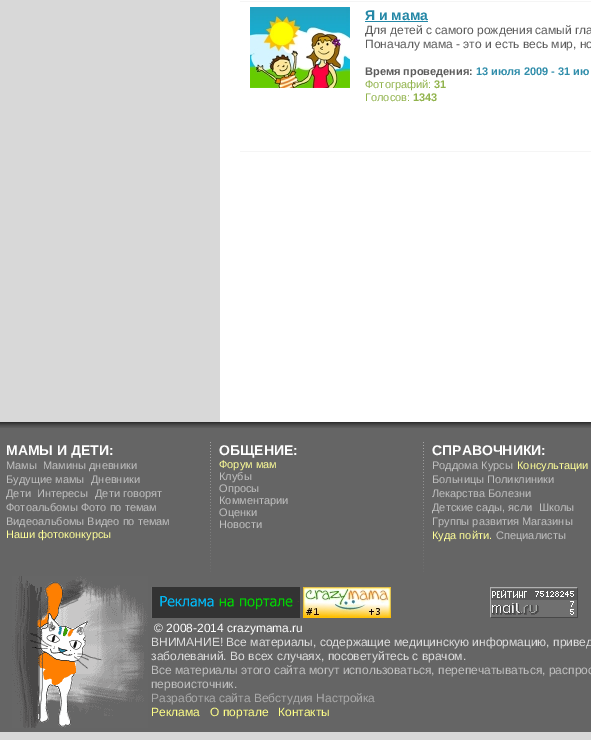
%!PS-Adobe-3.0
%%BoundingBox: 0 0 591 740
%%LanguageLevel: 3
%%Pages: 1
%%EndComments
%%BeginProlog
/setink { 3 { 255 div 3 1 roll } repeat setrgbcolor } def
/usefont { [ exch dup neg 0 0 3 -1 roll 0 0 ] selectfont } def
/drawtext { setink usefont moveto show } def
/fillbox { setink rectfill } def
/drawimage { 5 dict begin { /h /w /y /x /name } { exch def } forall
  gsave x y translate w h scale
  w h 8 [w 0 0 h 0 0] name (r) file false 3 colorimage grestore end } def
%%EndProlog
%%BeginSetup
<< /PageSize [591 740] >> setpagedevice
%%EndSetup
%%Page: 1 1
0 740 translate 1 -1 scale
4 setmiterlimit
0 0 591 740 216 216 216 fillbox
220 0 371 422 255 255 255 fillbox
240 1 351 1 245 245 245 fillbox
(assets/img1.rgb) 250 7 100 81 drawimage
240 151 351 1 245 245 245 fillbox
(Я и мама) 365 20 /LiberationSans-Bold 14 36 135 166 drawtext
365 21 63 1 36 135 166 fillbox
(Для детей с самого рождения самый гла) 365 34 /LiberationSans-Regular 12 92 92 92 drawtext
(Поначалу мама - это и есть весь мир, но) 365 48 /LiberationSans-Regular 12 92 92 92 drawtext
(Время проведения:) 365 75 /LiberationSans-Bold 11 92 92 92 drawtext
(13 июля 2009 - 31 ию) 476 75 /LiberationSans-Bold 11 49 142 171 drawtext
(Фотографий:) 365 88 /LiberationSans-Regular 11 145 179 76 drawtext
(31) 434 88 /LiberationSans-Bold 11 145 179 76 drawtext
(Голосов:) 365 101 /LiberationSans-Regular 11 145 179 76 drawtext
(1343) 413 101 /LiberationSans-Bold 11 145 179 76 drawtext
0 428 591 304 101 101 101 fillbox
(assets/img2.rgb) 0 422 591 6 drawimage
(МАМЫ И ДЕТИ:) 6 455 /LiberationSans-Bold 14 255 255 255 drawtext
(Мамы) 6 469 /LiberationSans-Regular 11 192 192 192 drawtext
(Мамины дневники) 43 469 /LiberationSans-Regular 11 192 192 192 drawtext
(Будущие мамы) 6 483 /LiberationSans-Regular 11 192 192 192 drawtext
(Дневники) 91 483 /LiberationSans-Regular 11 192 192 192 drawtext
(Дети) 6 497 /LiberationSans-Regular 11 192 192 192 drawtext
(Интересы) 37 497 /LiberationSans-Regular 11 192 192 192 drawtext
(Дети говорят) 95 497 /LiberationSans-Regular 11 192 192 192 drawtext
(Фотоальбомы Фото по темам) 6 511 /LiberationSans-Regular 11 192 192 192 drawtext
(Видеоальбомы Видео по темам) 6 525 /LiberationSans-Regular 11 192 192 192 drawtext
(Наши фотоконкурсы) 6 538 /LiberationSans-Regular 11 255 255 153 drawtext
(assets/img3.rgb) 210 442 1 130 drawimage
(ОБЩЕНИЕ:) 219 455 /LiberationSans-Bold 14 255 255 255 drawtext
(Форум мам) 219 468 /LiberationSans-Regular 11 255 255 153 drawtext
(Клубы) 219 480 /LiberationSans-Regular 11 192 192 192 drawtext
(Опросы) 219 492 /LiberationSans-Regular 11 192 192 192 drawtext
(Комментарии) 219 504 /LiberationSans-Regular 11 192 192 192 drawtext
(Оценки) 219 516 /LiberationSans-Regular 11 192 192 192 drawtext
(Новости) 219 528 /LiberationSans-Regular 11 192 192 192 drawtext
(assets/img3.rgb) 423 442 1 130 drawimage
(СПРАВОЧНИКИ:) 432 455 /LiberationSans-Bold 14 255 255 255 drawtext
(Роддома Курсы) 432 469 /LiberationSans-Regular 11 192 192 192 drawtext
(Консультации) 517 469 /LiberationSans-Regular 11 255 255 153 drawtext
(Больницы Поликлиники) 432 483 /LiberationSans-Regular 11 192 192 192 drawtext
(Лекарства Болезни) 432 497 /LiberationSans-Regular 11 192 192 192 drawtext
(Детские сады, ясли) 432 511 /LiberationSans-Regular 11 192 192 192 drawtext
(Школы) 539 511 /LiberationSans-Regular 11 192 192 192 drawtext
(Группы развития Магазины) 432 525 /LiberationSans-Regular 11 192 192 192 drawtext
(Куда пойти.) 432 539 /LiberationSans-Regular 11 255 255 153 drawtext
(Специалисты) 496 539 /LiberationSans-Regular 11 192 192 192 drawtext
(assets/img4.rgb) 12 576 136 152 drawimage
(assets/img5.rgb) 151 587 149 31 drawimage
(assets/img6.rgb) 303 587 88 31 drawimage
(assets/img7.rgb) 490 587 88 31 drawimage
(© 2008-2014 crazymama.ru) 154 632 /LiberationSans-Regular 12 255 255 255 drawtext
(ВНИМАНИЕ! Все материалы, содержащие медицинскую информацию, привед) 151 646 /LiberationSans-Regular 12 221 221 221 drawtext
(заболеваний. Во всех случаях, посоветуйтесь с врачом.) 151 660 /LiberationSans-Regular 12 221 221 221 drawtext
(Все материалы этого сайта могут использоваться, перепечатываться, распрос) 151 674 /LiberationSans-Regular 12 192 192 192 drawtext
(первоисточник.) 151 688 /LiberationSans-Regular 12 192 192 192 drawtext
(Разработка сайта Вебстудия Настройка) 151 702 /LiberationSans-Regular 12 170 170 170 drawtext
(Реклама) 151 716 /LiberationSans-Regular 12 255 255 136 drawtext
(О портале) 210 716 /LiberationSans-Regular 12 255 255 136 drawtext
(Контакты) 278 716 /LiberationSans-Regular 12 255 255 136 drawtext
showpage
%%EOF
